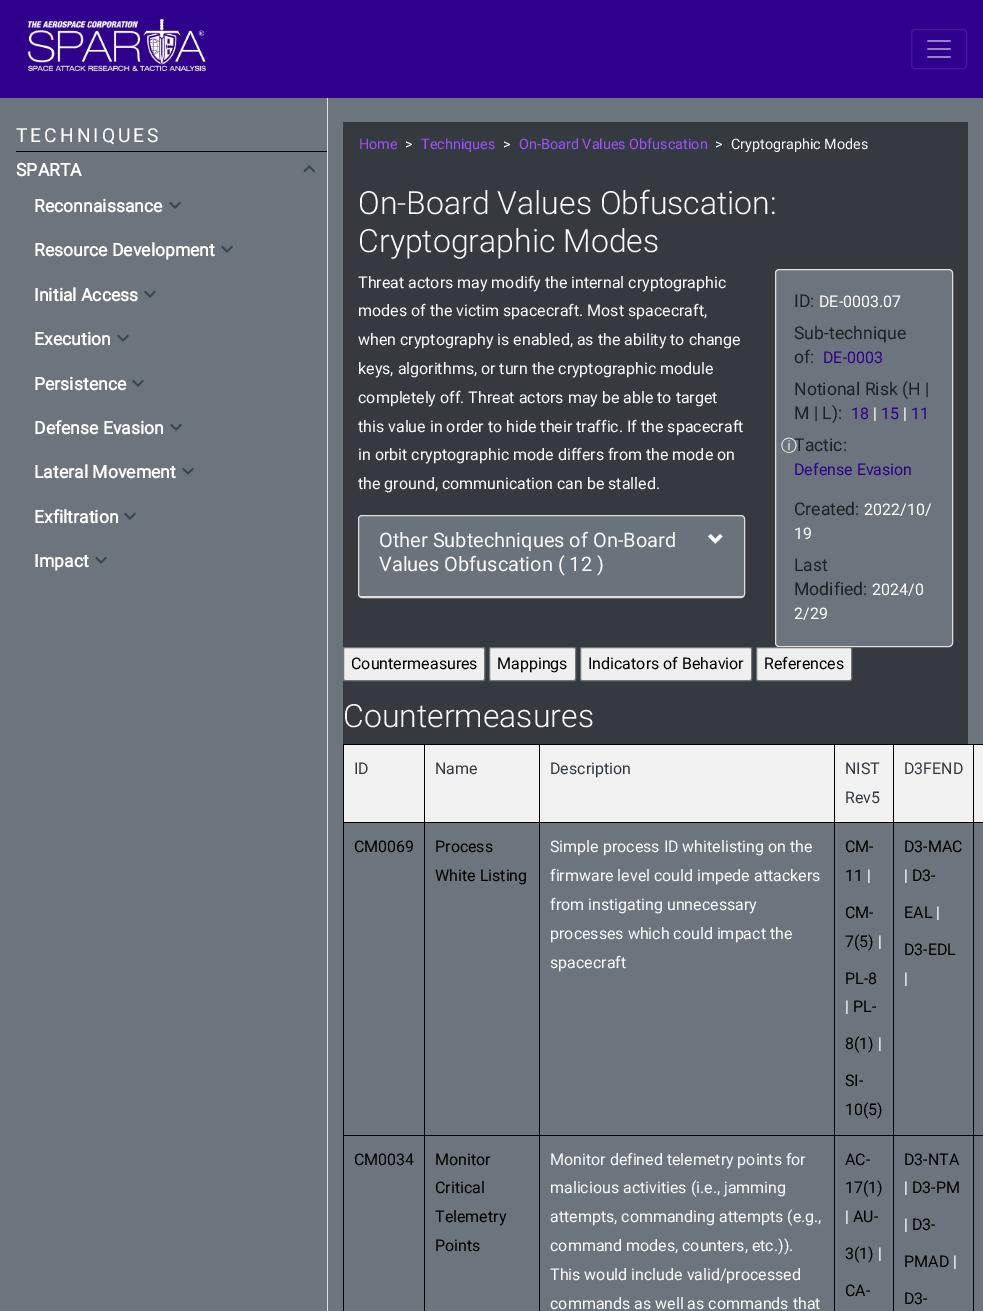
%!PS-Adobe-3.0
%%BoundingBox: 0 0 983 1311
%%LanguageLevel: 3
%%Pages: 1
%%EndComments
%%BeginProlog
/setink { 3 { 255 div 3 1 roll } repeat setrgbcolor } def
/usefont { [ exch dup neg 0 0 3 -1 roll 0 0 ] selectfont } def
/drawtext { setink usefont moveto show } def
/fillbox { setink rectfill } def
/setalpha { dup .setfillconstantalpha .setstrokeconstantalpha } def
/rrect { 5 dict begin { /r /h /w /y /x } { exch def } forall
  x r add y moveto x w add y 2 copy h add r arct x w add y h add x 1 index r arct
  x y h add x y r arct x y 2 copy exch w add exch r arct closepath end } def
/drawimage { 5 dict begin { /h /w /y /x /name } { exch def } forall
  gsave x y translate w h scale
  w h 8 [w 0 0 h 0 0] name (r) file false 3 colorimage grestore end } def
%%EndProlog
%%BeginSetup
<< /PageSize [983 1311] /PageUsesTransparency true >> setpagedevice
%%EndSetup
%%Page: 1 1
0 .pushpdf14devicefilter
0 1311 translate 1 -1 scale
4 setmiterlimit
0 0 983 1311 108 117 125 fillbox
0 0 983 98 46 0 139 fillbox
(assets/img1.rgb) 27 18 179 54 drawimage
67 26 151 setink
911.5 29.5 55 39 3.5 rrect stroke
(assets/img2.rgb) 927 40 24 18 drawimage
327 98 1 1213 223 223 223 fillbox
16 151 311 1 0 0 0 fillbox
/Roboto-Regular 19.25 usefont
255 255 255 setink
16 142 moveto 3 0 (TECHNIQUES) ashow
(SPARTA) 16 176 /Roboto-Bold 17.6 255 255 255 drawtext
(assets/img3.rgb) 303 165 12 8 drawimage
(Reconnaissance) 34 212 /Roboto-Bold 17.6 255 255 255 drawtext
(assets/img4.rgb) 169 201 12 8 drawimage
(Resource Development) 34 256 /Roboto-Bold 17.6 255 255 255 drawtext
(assets/img4.rgb) 221 245 12 8 drawimage
(Initial Access) 34 301 /Roboto-Bold 17.6 255 255 255 drawtext
(assets/img4.rgb) 144 290 12 8 drawimage
(Execution) 34 345 /Roboto-Bold 17.6 255 255 255 drawtext
(assets/img4.rgb) 117 334 12 8 drawimage
(Persistence) 34 390 /Roboto-Bold 17.6 255 255 255 drawtext
(assets/img4.rgb) 132 379 12 8 drawimage
(Defense Evasion) 34 434 /Roboto-Bold 17.6 255 255 255 drawtext
(assets/img4.rgb) 170 423 12 8 drawimage
(Lateral Movement) 34 478 /Roboto-Bold 17.6 255 255 255 drawtext
(assets/img4.rgb) 182 467 12 8 drawimage
(Exfiltration) 34 523 /Roboto-Bold 17.6 255 255 255 drawtext
(assets/img4.rgb) 124 512 12 8 drawimage
(Impact) 34 567 /Roboto-Bold 17.6 255 255 255 drawtext
(assets/img4.rgb) 95 556 12 8 drawimage
343 122 625 622 52 58 64 fillbox
(Home) 359 149 /Roboto-Regular 14.4 160 80 255 drawtext
(>) 405 149 /Roboto-Regular 14.4 255 255 255 drawtext
(Techniques) 421 149 /Roboto-Regular 14.4 160 80 255 drawtext
(>) 503 149 /Roboto-Regular 14.4 255 255 255 drawtext
(On-Board Values Obfuscation) 519 149 /Roboto-Regular 14.4 160 80 255 drawtext
(>) 715 149 /Roboto-Regular 14.4 255 255 255 drawtext
(Cryptographic Modes) 731 149 /Roboto-Regular 14.4 248 249 250 drawtext
(On-Board Values Obfuscation:) 358 214 /Roboto-Light 32 248 249 250 drawtext
(Cryptographic Modes) 358 252 /Roboto-Light 32 248 249 250 drawtext
(Threat actors may modify the internal cryptographic) 358 288 /Roboto-Regular 16 248 249 250 drawtext
(modes of the victim spacecraft. Most spacecraft,) 358 316 /Roboto-Regular 16 248 249 250 drawtext
(when cryptography is enabled, as the ability to change) 358 345 /Roboto-Regular 16 248 249 250 drawtext
(keys, algorithms, or turn the cryptographic module) 358 374 /Roboto-Regular 16 248 249 250 drawtext
(completely off. Threat actors may be able to target) 358 403 /Roboto-Regular 16 248 249 250 drawtext
(this value in order to hide their traffic. If the spacecraft) 358 432 /Roboto-Regular 16 248 249 250 drawtext
(in orbit cryptographic mode differs from the mode on) 358 460 /Roboto-Regular 16 248 249 250 drawtext
(the ground, communication can be stalled.) 358 489 /Roboto-Regular 16 248 249 250 drawtext
108 117 125 setink
358.5 515.5 386 82 3.5 rrect gsave fill grestore
223 223 223 setink
stroke
0.03 setalpha
359 516 385 80 57 67 76 fillbox
1 setalpha
359 596 385 1 223 223 223 fillbox
(Other Subtechniques of On-Board) 379 547 /Roboto-Regular 20 248 249 250 drawtext
(Values Obfuscation \( 12 \)) 379 571 /Roboto-Regular 20 248 249 250 drawtext
(assets/img5.rgb) 708 533 15 11 drawimage
108 117 125 setink
775.5 269.5 177 377 3.5 rrect gsave fill grestore
223 223 223 setink
stroke
(ID:) 794 307 /Roboto-Regular 17.6 28 34 38 drawtext
(DE-0003.07) 819 307 /Roboto-Regular 16 255 255 255 drawtext
(Sub-technique) 794 339 /Roboto-Regular 17.6 28 34 38 drawtext
(of:) 794 363 /Roboto-Regular 17.6 28 34 38 drawtext
(DE-0003) 823 363 /Roboto-Regular 16 46 0 139 drawtext
(Notional Risk \(H |) 794 395 /Roboto-Regular 17.6 28 34 38 drawtext
(M | L\):) 794 419 /Roboto-Regular 17.6 28 34 38 drawtext
(18) 851 419 /Roboto-Regular 16 46 0 139 drawtext
(|) 873 419 /Roboto-Regular 16 255 255 255 drawtext
(15) 881 419 /Roboto-Regular 16 46 0 139 drawtext
(|) 903 419 /Roboto-Regular 16 255 255 255 drawtext
(11) 911 419 /Roboto-Regular 16 46 0 139 drawtext
(ⓘ) 781 451 /WenQuanYiZenHei-Medium 16 255 255 255 drawtext
(Tactic:) 794 451 /Roboto-Regular 17.6 28 34 38 drawtext
(Defense Evasion) 794 475 /Roboto-Regular 16 46 0 139 drawtext
(Created:) 794 515 /Roboto-Regular 17.6 28 34 38 drawtext
(2022/10/) 864 515 /Roboto-Regular 16 255 255 255 drawtext
(19) 794 539 /Roboto-Regular 16 255 255 255 drawtext
(Last) 794 571 /Roboto-Regular 17.6 28 34 38 drawtext
(Modified:) 794 595 /Roboto-Regular 17.6 28 34 38 drawtext
(2024/0) 872 595 /Roboto-Regular 16 255 255 255 drawtext
(2/29) 794 619 /Roboto-Regular 16 255 255 255 drawtext
239 239 239 setink
343.5 647.5 141 33 1.5 rrect gsave fill grestore
118 118 118 setink
stroke
(Countermeasures) 351 669 /Roboto-Regular 16 0 0 0 drawtext
239 239 239 setink
489.5 647.5 86 33 1.5 rrect gsave fill grestore
118 118 118 setink
stroke
(Mappings) 497 669 /Roboto-Regular 16 0 0 0 drawtext
239 239 239 setink
580.5 647.5 171 33 1.5 rrect gsave fill grestore
118 118 118 setink
stroke
(Indicators of Behavior) 588 669 /Roboto-Regular 16 0 0 0 drawtext
239 239 239 setink
756.5 647.5 95 33 1.5 rrect gsave fill grestore
118 118 118 setink
stroke
(References) 764 669 /Roboto-Regular 16 0 0 0 drawtext
(Countermeasures) 343 727 /Roboto-Light 32 248 249 250 drawtext
344 745 639 77 242 242 242 fillbox
343 822 640 1 0 0 0 fillbox
973 744 10 1 0 0 0 fillbox
973 1135 10 1 0 0 0 fillbox
973 1135 1 176 0 0 0 fillbox
893 1135 81 1 0 0 0 fillbox
973 822 1 314 0 0 0 fillbox
973 744 1 79 0 0 0 fillbox
893 744 81 1 0 0 0 fillbox
893 1135 1 176 0 0 0 fillbox
834 1135 60 1 0 0 0 fillbox
893 822 1 314 0 0 0 fillbox
893 744 1 79 0 0 0 fillbox
834 744 60 1 0 0 0 fillbox
834 1135 1 176 0 0 0 fillbox
539 1135 296 1 0 0 0 fillbox
834 822 1 314 0 0 0 fillbox
834 744 1 79 0 0 0 fillbox
539 744 296 1 0 0 0 fillbox
539 1135 1 176 0 0 0 fillbox
424 1135 116 1 0 0 0 fillbox
539 822 1 314 0 0 0 fillbox
539 744 1 79 0 0 0 fillbox
424 744 116 1 0 0 0 fillbox
424 1135 1 176 0 0 0 fillbox
343 1135 82 1 0 0 0 fillbox
424 822 1 314 0 0 0 fillbox
424 744 1 79 0 0 0 fillbox
343 744 82 1 0 0 0 fillbox
343 822 1 489 0 0 0 fillbox
343 744 1 79 0 0 0 fillbox
(ID) 354 774 /Roboto-Regular 16 52 58 64 drawtext
(Name) 435 774 /Roboto-Regular 16 52 58 64 drawtext
(Description) 550 774 /Roboto-Regular 16 52 58 64 drawtext
(NIST) 845 774 /Roboto-Regular 16 52 58 64 drawtext
(Rev5) 845 803 /Roboto-Regular 16 52 58 64 drawtext
(D3FEND) 904 774 /Roboto-Regular 16 52 58 64 drawtext
(CM0069) 354 852 /Roboto-Regular 16 0 0 0 drawtext
(Process) 435 852 /Roboto-Regular 16 0 0 0 drawtext
(White Listing) 435 881 /Roboto-Regular 16 0 0 0 drawtext
(Simple process ID whitelisting on the) 550 852 /Roboto-Regular 16 248 249 250 drawtext
(firmware level could impede attackers) 550 881 /Roboto-Regular 16 248 249 250 drawtext
(from instigating unnecessary) 550 910 /Roboto-Regular 16 248 249 250 drawtext
(processes which could impact the) 550 939 /Roboto-Regular 16 248 249 250 drawtext
(spacecraft) 550 968 /Roboto-Regular 16 248 249 250 drawtext
(CM-) 845 852 /Roboto-Regular 16 0 0 0 drawtext
(11) 845 881 /Roboto-Regular 16 0 0 0 drawtext
(|) 867 881 /Roboto-Regular 16 255 255 255 drawtext
(CM-) 845 918 /Roboto-Regular 16 0 0 0 drawtext
(7\(5\)) 845 947 /Roboto-Regular 16 0 0 0 drawtext
(|) 878 947 /Roboto-Regular 16 255 255 255 drawtext
(PL-8) 845 984 /Roboto-Regular 16 0 0 0 drawtext
(|) 845 1012 /Roboto-Regular 16 255 255 255 drawtext
(PL-) 853 1012 /Roboto-Regular 16 0 0 0 drawtext
(8\(1\)) 845 1049 /Roboto-Regular 16 0 0 0 drawtext
(|) 878 1049 /Roboto-Regular 16 255 255 255 drawtext
(SI-) 845 1086 /Roboto-Regular 16 0 0 0 drawtext
(10\(5\)) 845 1115 /Roboto-Regular 16 0 0 0 drawtext
(D3-MAC) 904 852 /Roboto-Regular 16 0 0 0 drawtext
(|) 904 881 /Roboto-Regular 16 255 255 255 drawtext
(D3-) 912 881 /Roboto-Regular 16 0 0 0 drawtext
(EAL) 904 918 /Roboto-Regular 16 0 0 0 drawtext
(|) 936 918 /Roboto-Regular 16 255 255 255 drawtext
(D3-EDL) 904 955 /Roboto-Regular 16 0 0 0 drawtext
(|) 904 984 /Roboto-Regular 16 255 255 255 drawtext
(CM0034) 354 1165 /Roboto-Regular 16 0 0 0 drawtext
(Monitor) 435 1165 /Roboto-Regular 16 0 0 0 drawtext
(Critical) 435 1193 /Roboto-Regular 16 0 0 0 drawtext
(Telemetry) 435 1222 /Roboto-Regular 16 0 0 0 drawtext
(Points) 435 1251 /Roboto-Regular 16 0 0 0 drawtext
(Monitor defined telemetry points for) 550 1165 /Roboto-Regular 16 248 249 250 drawtext
(malicious activities \(i.e., jamming) 550 1193 /Roboto-Regular 16 248 249 250 drawtext
(attempts, commanding attempts \(e.g.,) 550 1222 /Roboto-Regular 16 248 249 250 drawtext
(command modes, counters, etc.\)\).) 550 1251 /Roboto-Regular 16 248 249 250 drawtext
(This would include valid/processed) 550 1280 /Roboto-Regular 16 248 249 250 drawtext
(commands as well as commands that) 550 1309 /Roboto-Regular 16 248 249 250 drawtext
(AC-) 845 1165 /Roboto-Regular 16 0 0 0 drawtext
(17\(1\)) 845 1193 /Roboto-Regular 16 0 0 0 drawtext
(|) 845 1222 /Roboto-Regular 16 255 255 255 drawtext
(AU-) 853 1222 /Roboto-Regular 16 0 0 0 drawtext
(3\(1\)) 845 1259 /Roboto-Regular 16 0 0 0 drawtext
(|) 878 1259 /Roboto-Regular 16 255 255 255 drawtext
(CA-) 845 1296 /Roboto-Regular 16 0 0 0 drawtext
(D3-NTA) 904 1165 /Roboto-Regular 16 0 0 0 drawtext
(|) 904 1193 /Roboto-Regular 16 255 255 255 drawtext
(D3-PM) 912 1193 /Roboto-Regular 16 0 0 0 drawtext
(|) 904 1230 /Roboto-Regular 16 255 255 255 drawtext
(D3-) 912 1230 /Roboto-Regular 16 0 0 0 drawtext
(PMAD) 904 1267 /Roboto-Regular 16 0 0 0 drawtext
(|) 953 1267 /Roboto-Regular 16 255 255 255 drawtext
(D3-) 904 1304 /Roboto-Regular 16 0 0 0 drawtext
.poppdf14devicefilter showpage
%%EOF
